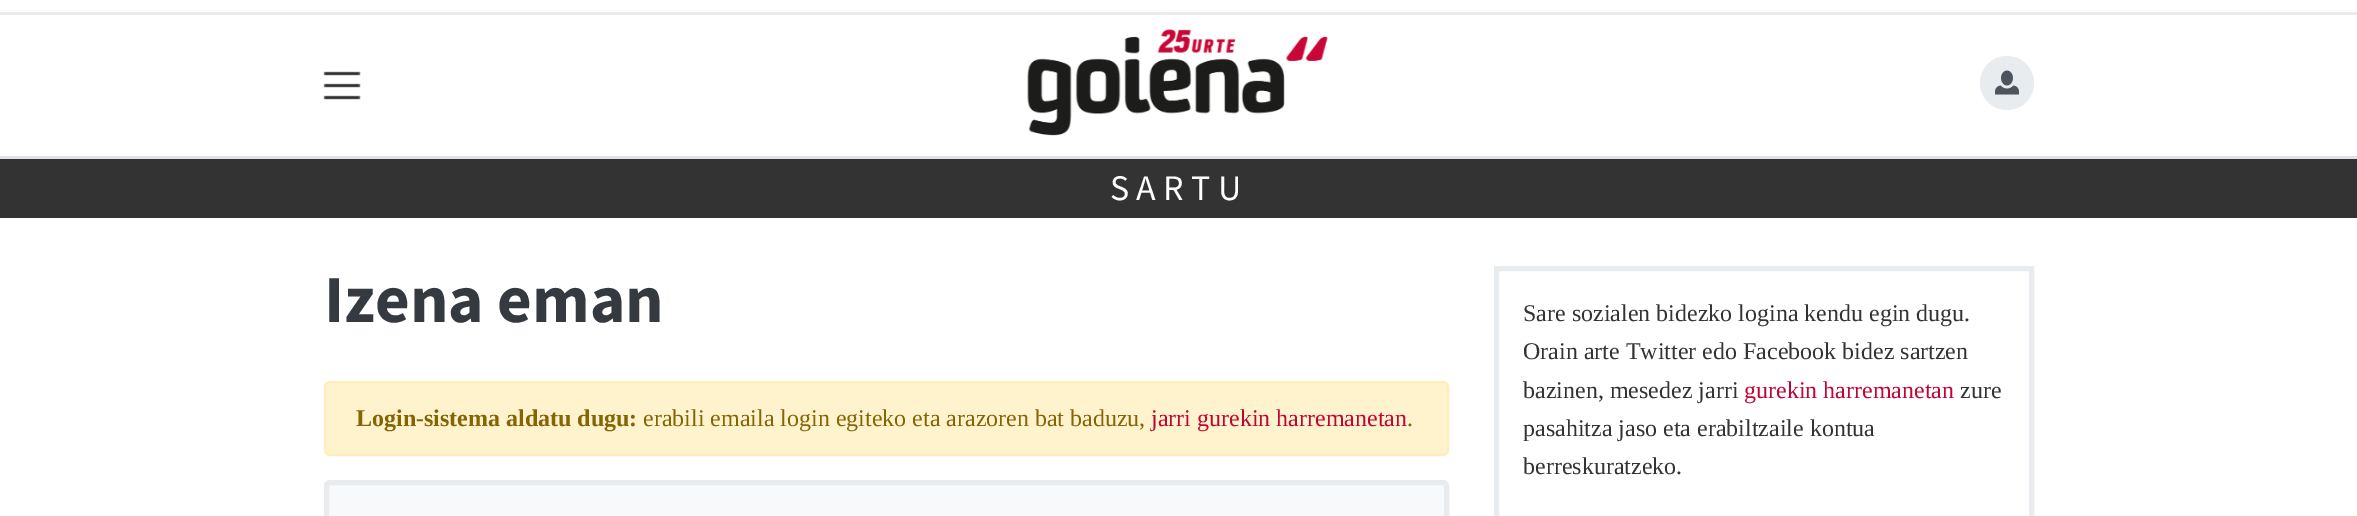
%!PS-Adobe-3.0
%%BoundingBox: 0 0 2357 516
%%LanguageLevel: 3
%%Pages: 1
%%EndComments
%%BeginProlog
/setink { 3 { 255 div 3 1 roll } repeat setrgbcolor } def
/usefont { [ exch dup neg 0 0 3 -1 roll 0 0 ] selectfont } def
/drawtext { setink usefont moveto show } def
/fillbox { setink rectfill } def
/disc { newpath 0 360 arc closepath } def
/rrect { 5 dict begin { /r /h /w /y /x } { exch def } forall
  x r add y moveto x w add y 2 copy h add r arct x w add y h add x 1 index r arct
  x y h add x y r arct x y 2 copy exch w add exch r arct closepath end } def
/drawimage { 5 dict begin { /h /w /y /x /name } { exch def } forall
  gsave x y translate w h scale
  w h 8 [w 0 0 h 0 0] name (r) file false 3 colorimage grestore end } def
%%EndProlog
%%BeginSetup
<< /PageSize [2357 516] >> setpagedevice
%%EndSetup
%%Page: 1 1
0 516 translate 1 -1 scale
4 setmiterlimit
0 0 2357 516 255 255 255 fillbox
0 12 2357 3 233 236 239 fillbox
(assets/img1.rgb) 323 71 38 29 drawimage
(assets/img2.rgb) 1027 29 301 107 drawimage
2007 83 27 disc fill
(assets/img3.rgb) 1995 70 24 25 drawimage
0 156 2357 3 222 226 230 fillbox
0 159 2357 59 51 51 52 fillbox
/SourceSansPro-Regular 36 usefont
255 255 255 setink
1110 200 moveto 7.25 0 (SARTU) ashow
(Izena eman) 324 322 /SourceSansPro-Bold 67.25 52 58 64 drawtext
255 243 205 setink
325 382 1123 73 5 rrect gsave fill grestore
255 238 186 setink
2 setlinewidth
stroke
(Login-sistema aldatu dugu:) 356 426 /LiberationSerif-Bold 24 133 100 4 drawtext
(erabili emaila login egiteko eta arazoren bat baduzu,) 643 426 /LiberationSerif-Regular 24 133 100 4 drawtext
(jarri gurekin harremanetan) 1151 426 /LiberationSerif-Regular 24 193 4 53 drawtext
(.) 1407 426 /LiberationSerif-Regular 24 133 100 4 drawtext
248 249 250 setink
326.5 482.5 1120 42 3.5 rrect gsave fill grestore
233 236 239 setink
5 setlinewidth
stroke
1496.5 268.5 535 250 rectstroke
(Sare sozialen bidezko logina kendu egin dugu.) 1523 321 /LiberationSerif-Regular 24 51 51 51 drawtext
(Orain arte Twitter edo Facebook bidez sartzen) 1523 359 /LiberationSerif-Regular 24 51 51 51 drawtext
(bazinen, mesedez jarri) 1523 398 /LiberationSerif-Regular 24 51 51 51 drawtext
(gurekin harremanetan) 1744 398 /LiberationSerif-Regular 24 193 4 53 drawtext
(zure) 1960 398 /LiberationSerif-Regular 24 51 51 51 drawtext
(pasahitza jaso eta erabiltzaile kontua) 1523 436 /LiberationSerif-Regular 24 51 51 51 drawtext
(berreskuratzeko.) 1523 474 /LiberationSerif-Regular 24 51 51 51 drawtext
showpage
%%EOF
